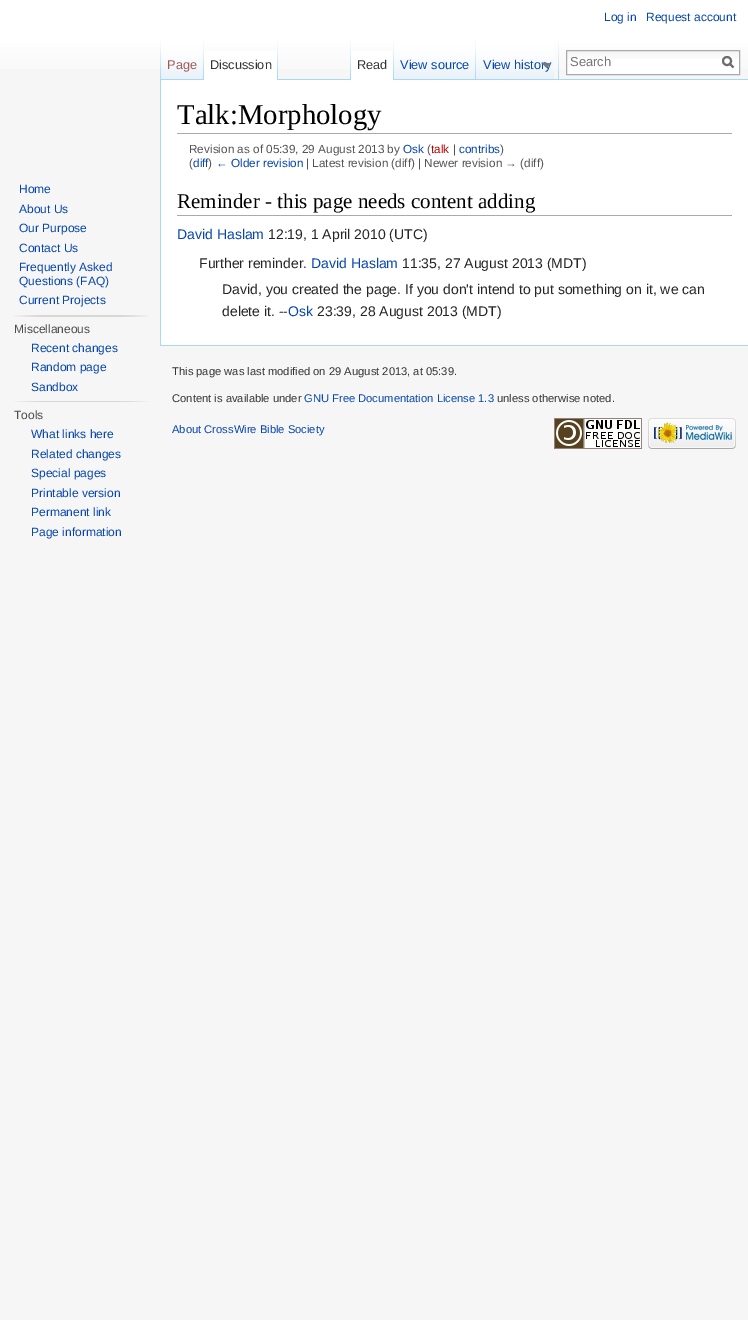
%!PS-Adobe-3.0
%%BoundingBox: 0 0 748 1320
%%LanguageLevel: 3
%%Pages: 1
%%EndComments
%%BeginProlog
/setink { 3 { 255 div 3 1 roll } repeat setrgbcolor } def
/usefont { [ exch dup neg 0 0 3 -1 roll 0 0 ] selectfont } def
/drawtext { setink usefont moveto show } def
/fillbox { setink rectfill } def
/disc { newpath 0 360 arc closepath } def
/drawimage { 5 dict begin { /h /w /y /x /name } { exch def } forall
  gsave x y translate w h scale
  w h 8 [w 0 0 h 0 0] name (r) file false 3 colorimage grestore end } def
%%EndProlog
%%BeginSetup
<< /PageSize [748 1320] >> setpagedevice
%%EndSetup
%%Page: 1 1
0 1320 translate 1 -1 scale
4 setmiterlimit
0 0 748 1320 246 246 246 fillbox
gsave 0 0 moveto 748 0 lineto 748 69 lineto 0 69 lineto closepath clip newpath
<< /ShadingType 2 /ColorSpace /DeviceRGB /Coords [374 0 374 80] /Extend [true true] /Function << /FunctionType 3 /Domain [0 1] /Functions [<< /FunctionType 2 /Domain [0 1] /C0 [1 1 1] /C1 [1 1 1] /N 1 >> << /FunctionType 2 /Domain [0 1] /C0 [1 1 1] /C1 [0.965 0.965 0.965] /N 1 >>] /Bounds [0.5] /Encode [0 1 0 1] >> >> shfill grestore
(Log in) 604 21 /LiberationSans-Regular 12 6 69 173 drawtext
(Request account) 646 21 /LiberationSans-Regular 12 6 69 173 drawtext
(assets/img1.rgb) 160 40 1 39 drawimage
(assets/img2.rgb) 161 40 43 40 drawimage
(assets/img3.rgb) 203 40 1 39 drawimage
(Page) 167 69 /LiberationSans-Regular 12.75 165 88 88 drawtext
204 51 73 29 255 255 255 fillbox
(assets/img4.rgb) 277 40 1 40 drawimage
(Discussion) 210 69 /LiberationSans-Regular 12.75 51 51 51 drawtext
(assets/img1.rgb) 558 40 1 39 drawimage
278 79 470 1 167 215 249 fillbox
(assets/img7.rgb) 476 40 78 40 drawimage
(View history) 483 69 /LiberationSans-Regular 12.75 6 69 173 drawtext
121 121 121 setink
551.5 63 moveto 546.5 68 lineto 541.5 63 lineto closepath fill
567 59 172 15 255 255 255 fillbox
(assets/img5.rgb) 567 51 172 8 drawimage
170 170 170 setink
566.5 50.5 173 24 rectstroke
(Search) 570 66 /LiberationSans-Regular 13 117 117 117 drawtext
108 108 108 setink
2 setlinewidth
733.5 67.5 moveto 729.5 63.5 lineto stroke
727 61 4 disc stroke
(assets/img1.rgb) 350 40 1 39 drawimage
351 51 42 29 255 255 255 fillbox
(assets/img4.rgb) 393 40 1 40 drawimage
(Read) 357 69 /LiberationSans-Regular 12.75 51 51 51 drawtext
(assets/img6.rgb) 394 40 82 40 drawimage
(assets/img3.rgb) 475 40 1 39 drawimage
(View source) 400 69 /LiberationSans-Regular 12.75 6 69 173 drawtext
(Home) 19 193 /LiberationSans-Regular 12 6 69 173 drawtext
(About Us) 19 213 /LiberationSans-Regular 12 6 69 173 drawtext
(Our Purpose) 19 232 /LiberationSans-Regular 12 6 69 173 drawtext
(Contact Us) 19 252 /LiberationSans-Regular 12 6 69 173 drawtext
(Frequently Asked) 19 271 /LiberationSans-Regular 12 6 69 173 drawtext
(Questions \(FAQ\)) 19 285 /LiberationSans-Regular 12 6 69 173 drawtext
(Current Projects) 19 304 /LiberationSans-Regular 12 6 69 173 drawtext
(assets/img8.rgb) 14 315 135 2 drawimage
(Miscellaneous) 14 333 /LiberationSans-Regular 12 77 77 77 drawtext
(Recent changes) 31 352 /LiberationSans-Regular 12 6 69 173 drawtext
(Random page) 31 371 /LiberationSans-Regular 12 6 69 173 drawtext
(Sandbox) 31 391 /LiberationSans-Regular 12 6 69 173 drawtext
(assets/img9.rgb) 14 401 135 1 drawimage
(Tools) 14 419 /LiberationSans-Regular 12 77 77 77 drawtext
(What links here) 31 438 /LiberationSans-Regular 12 6 69 173 drawtext
(Related changes) 31 458 /LiberationSans-Regular 12 6 69 173 drawtext
(Special pages) 31 477 /LiberationSans-Regular 12 6 69 173 drawtext
(Printable version) 31 497 /LiberationSans-Regular 12 6 69 173 drawtext
(Permanent link) 31 516 /LiberationSans-Regular 12 6 69 173 drawtext
(Page information) 31 536 /LiberationSans-Regular 12 6 69 173 drawtext
161 80 587 265 255 255 255 fillbox
160 345 588 1 167 215 249 fillbox
160 79 1 267 167 215 249 fillbox
177 133 555 1 170 170 170 fillbox
(Talk:Morphology) 177 124 /LiberationSerif-Regular 28.75 0 0 0 drawtext
(Revision as of 05:39, 29 August 2013 by) 189 153 /LiberationSans-Regular 11.75 84 84 84 drawtext
(Osk) 403 153 /LiberationSans-Regular 11.75 6 69 173 drawtext
(\() 427 153 /LiberationSans-Regular 11.75 84 84 84 drawtext
(talk) 431 153 /LiberationSans-Regular 11.75 186 0 0 drawtext
(|) 453 153 /LiberationSans-Regular 11.75 84 84 84 drawtext
(contribs) 459 153 /LiberationSans-Regular 11.75 6 69 173 drawtext
(\)) 500 153 /LiberationSans-Regular 11.75 84 84 84 drawtext
(\() 189 167 /LiberationSans-Regular 11.75 84 84 84 drawtext
(diff) 193 167 /LiberationSans-Regular 11.75 6 69 173 drawtext
(\)) 208 167 /LiberationSans-Regular 11.75 84 84 84 drawtext
(← Older revision) 216 167 /LiberationSans-Regular 11.75 6 69 173 drawtext
(| Latest revision \(diff\) | Newer revision → \(diff\)) 306 167 /LiberationSans-Regular 11.75 84 84 84 drawtext
177 215 555 1 170 170 170 fillbox
(Reminder - this page needs content adding) 177 208 /LiberationSerif-Regular 21 0 0 0 drawtext
(David Haslam) 177 239 /LiberationSans-Regular 14 6 69 173 drawtext
(12:19, 1 April 2010 \(UTC\)) 268 239 /LiberationSans-Regular 14 37 37 37 drawtext
(Further reminder.) 199 268 /LiberationSans-Regular 14 37 37 37 drawtext
(David Haslam) 311 268 /LiberationSans-Regular 14 6 69 173 drawtext
(11:35, 27 August 2013 \(MDT\)) 402 268 /LiberationSans-Regular 14 37 37 37 drawtext
(David, you created the page. If you don't intend to put something on it, we can) 222 294 /LiberationSans-Regular 14 37 37 37 drawtext
(delete it. --) 222 316 /LiberationSans-Regular 14 37 37 37 drawtext
(Osk) 288 316 /LiberationSans-Regular 14 6 69 173 drawtext
(23:39, 28 August 2013 \(MDT\)) 317 316 /LiberationSans-Regular 14 37 37 37 drawtext
(This page was last modified on 29 August 2013, at 05:39.) 172 375 /LiberationSans-Regular 11.2 51 51 51 drawtext
(Content is available under) 172 402 /LiberationSans-Regular 11.2 51 51 51 drawtext
(GNU Free Documentation License 1.3) 304 402 /LiberationSans-Regular 11.2 6 69 173 drawtext
(unless otherwise noted.) 497 402 /LiberationSans-Regular 11.2 51 51 51 drawtext
(About CrossWire Bible Society) 172 433 /LiberationSans-Regular 11.2 6 69 173 drawtext
(assets/img10.rgb) 554 418 88 31 drawimage
(assets/img11.rgb) 648 418 88 31 drawimage
showpage
%%EOF
